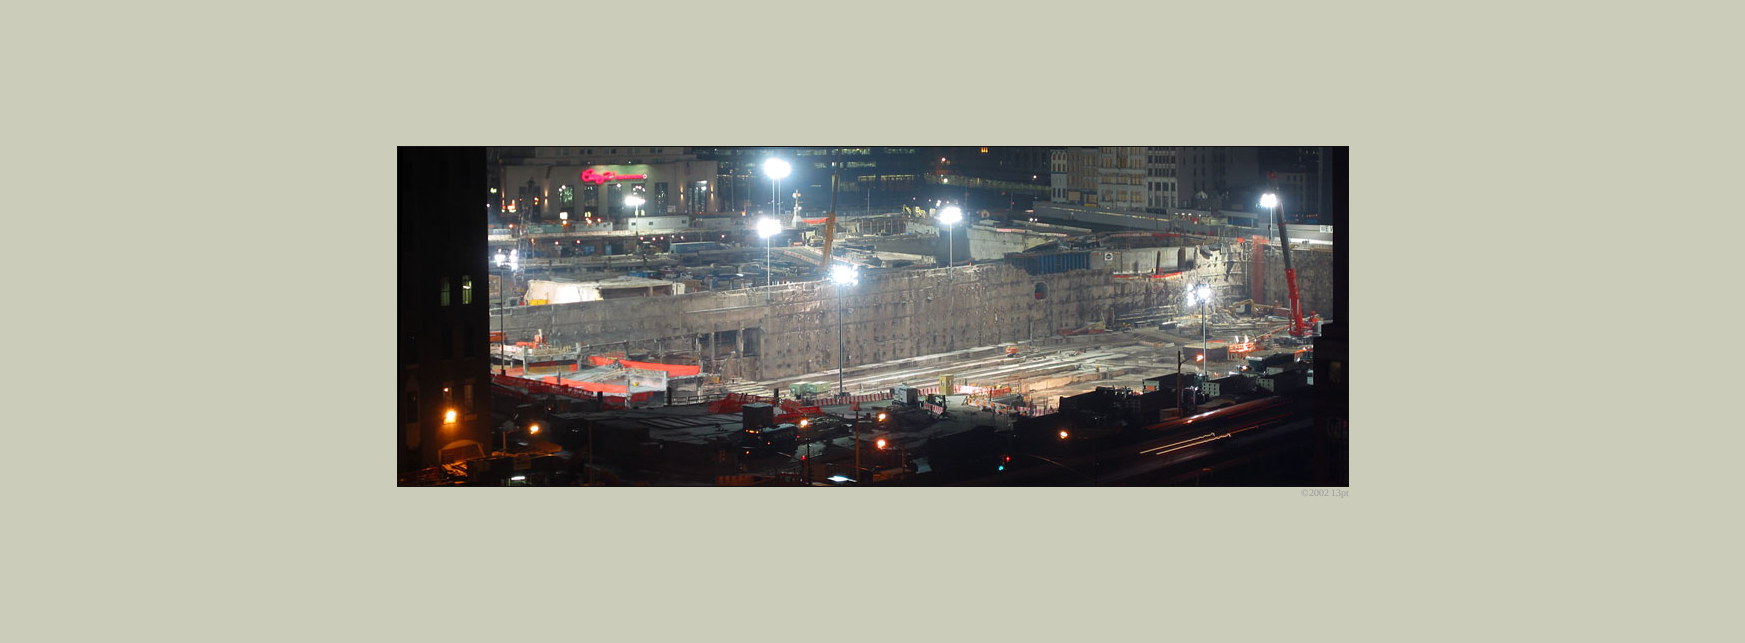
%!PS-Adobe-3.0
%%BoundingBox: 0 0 1745 643
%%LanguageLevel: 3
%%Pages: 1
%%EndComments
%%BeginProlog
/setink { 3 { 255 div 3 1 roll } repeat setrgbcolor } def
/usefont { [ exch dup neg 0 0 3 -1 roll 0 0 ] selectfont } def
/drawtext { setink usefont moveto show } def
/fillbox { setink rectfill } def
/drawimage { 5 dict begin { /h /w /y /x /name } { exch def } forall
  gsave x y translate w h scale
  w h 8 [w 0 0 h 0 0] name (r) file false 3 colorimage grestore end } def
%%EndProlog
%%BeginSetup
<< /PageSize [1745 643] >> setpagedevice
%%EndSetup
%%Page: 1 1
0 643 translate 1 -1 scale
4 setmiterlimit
0 0 1745 643 204 204 187 fillbox
397 146 952 341 17 17 17 fillbox
(assets/img1.rgb) 398 147 950 339 drawimage
(©2002 13pt) 1301 496 /LiberationSerif-Regular 10 153 153 153 drawtext
showpage
%%EOF
